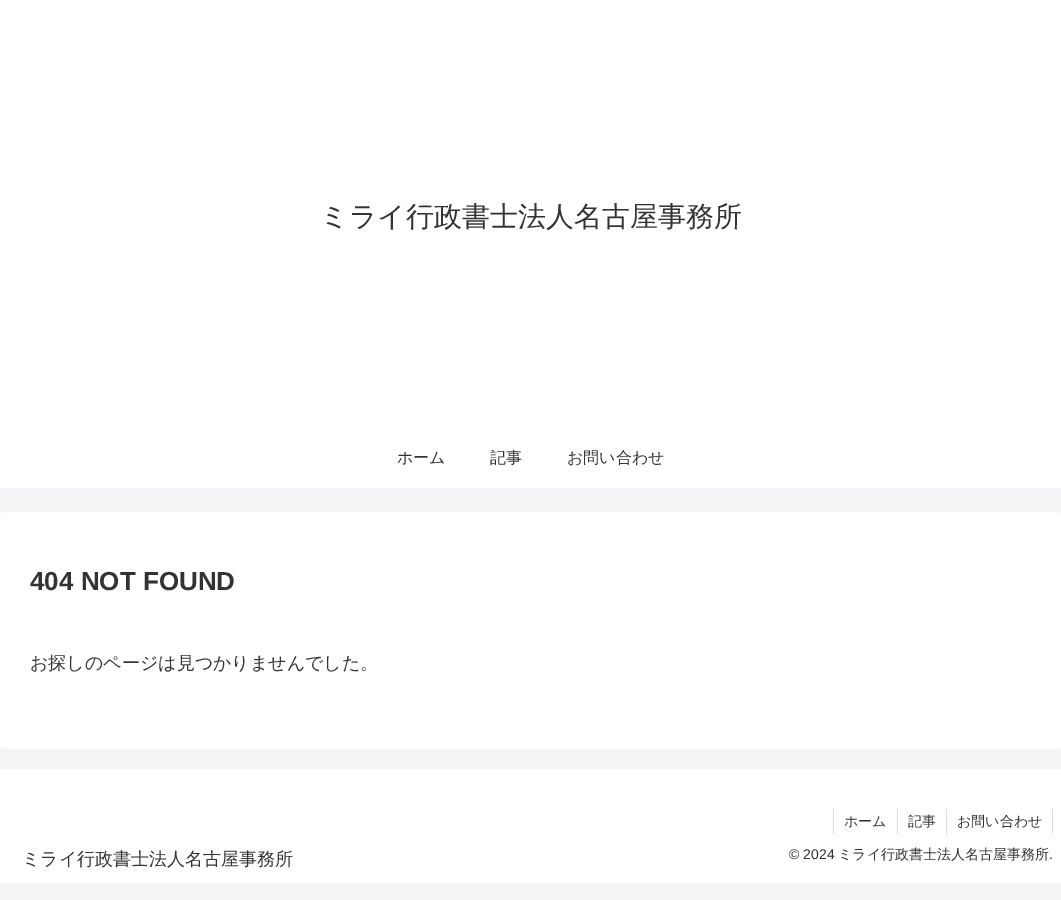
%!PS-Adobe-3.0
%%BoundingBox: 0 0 1061 900
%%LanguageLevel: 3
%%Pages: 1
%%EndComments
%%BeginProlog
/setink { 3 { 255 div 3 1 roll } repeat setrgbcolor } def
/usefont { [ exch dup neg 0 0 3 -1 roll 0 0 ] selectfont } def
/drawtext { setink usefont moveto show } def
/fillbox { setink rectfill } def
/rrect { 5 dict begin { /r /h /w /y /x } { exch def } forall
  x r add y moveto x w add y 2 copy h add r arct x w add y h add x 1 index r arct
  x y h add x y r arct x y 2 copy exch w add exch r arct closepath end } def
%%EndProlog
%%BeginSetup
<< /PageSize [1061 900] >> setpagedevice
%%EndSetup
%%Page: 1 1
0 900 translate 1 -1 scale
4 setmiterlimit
0 0 1061 900 244 245 247 fillbox
0 0 1061 488 255 255 255 fillbox
(ミライ行政書士法人名古屋事務所) 320 226 /WenQuanYiZenHei-Medium 28 51 51 51 drawtext
(ホーム) 397 463 /WenQuanYiZenHei-Medium 16 51 51 51 drawtext
(記事) 490 463 /WenQuanYiZenHei-Medium 16 51 51 51 drawtext
(お問い合わせ) 567 463 /WenQuanYiZenHei-Medium 16 51 51 51 drawtext
255 255 255 setink
0 512 1061 237 4 rrect fill
(404 NOT FOUND) 30 590 /LiberationSans-Bold 26 51 51 51 drawtext
(お探しのページは見つかりませんでした。) 30 669 /WenQuanYiZenHei-Medium 18 51 51 51 drawtext
0 769 1061 114 255 255 255 fillbox
(ミライ行政書士法人名古屋事務所) 22 865 /WenQuanYiZenHei-Medium 18 51 51 51 drawtext
833 809 1 25 221 221 221 fillbox
(ホーム) 844 826 /WenQuanYiZenHei-Medium 14 51 51 51 drawtext
897 809 1 25 221 221 221 fillbox
(記事) 908 826 /WenQuanYiZenHei-Medium 14 51 51 51 drawtext
1052 809 1 25 221 221 221 fillbox
946 809 1 25 221 221 221 fillbox
(お問い合わせ) 957 826 /WenQuanYiZenHei-Medium 14 51 51 51 drawtext
(© 2024) 789 859 /LiberationSans-Regular 14 51 51 51 drawtext
(ミライ行政書士法人名古屋事務所) 838 859 /WenQuanYiZenHei-Medium 14 51 51 51 drawtext
(.) 1049 859 /LiberationSans-Regular 14 51 51 51 drawtext
showpage
%%EOF
